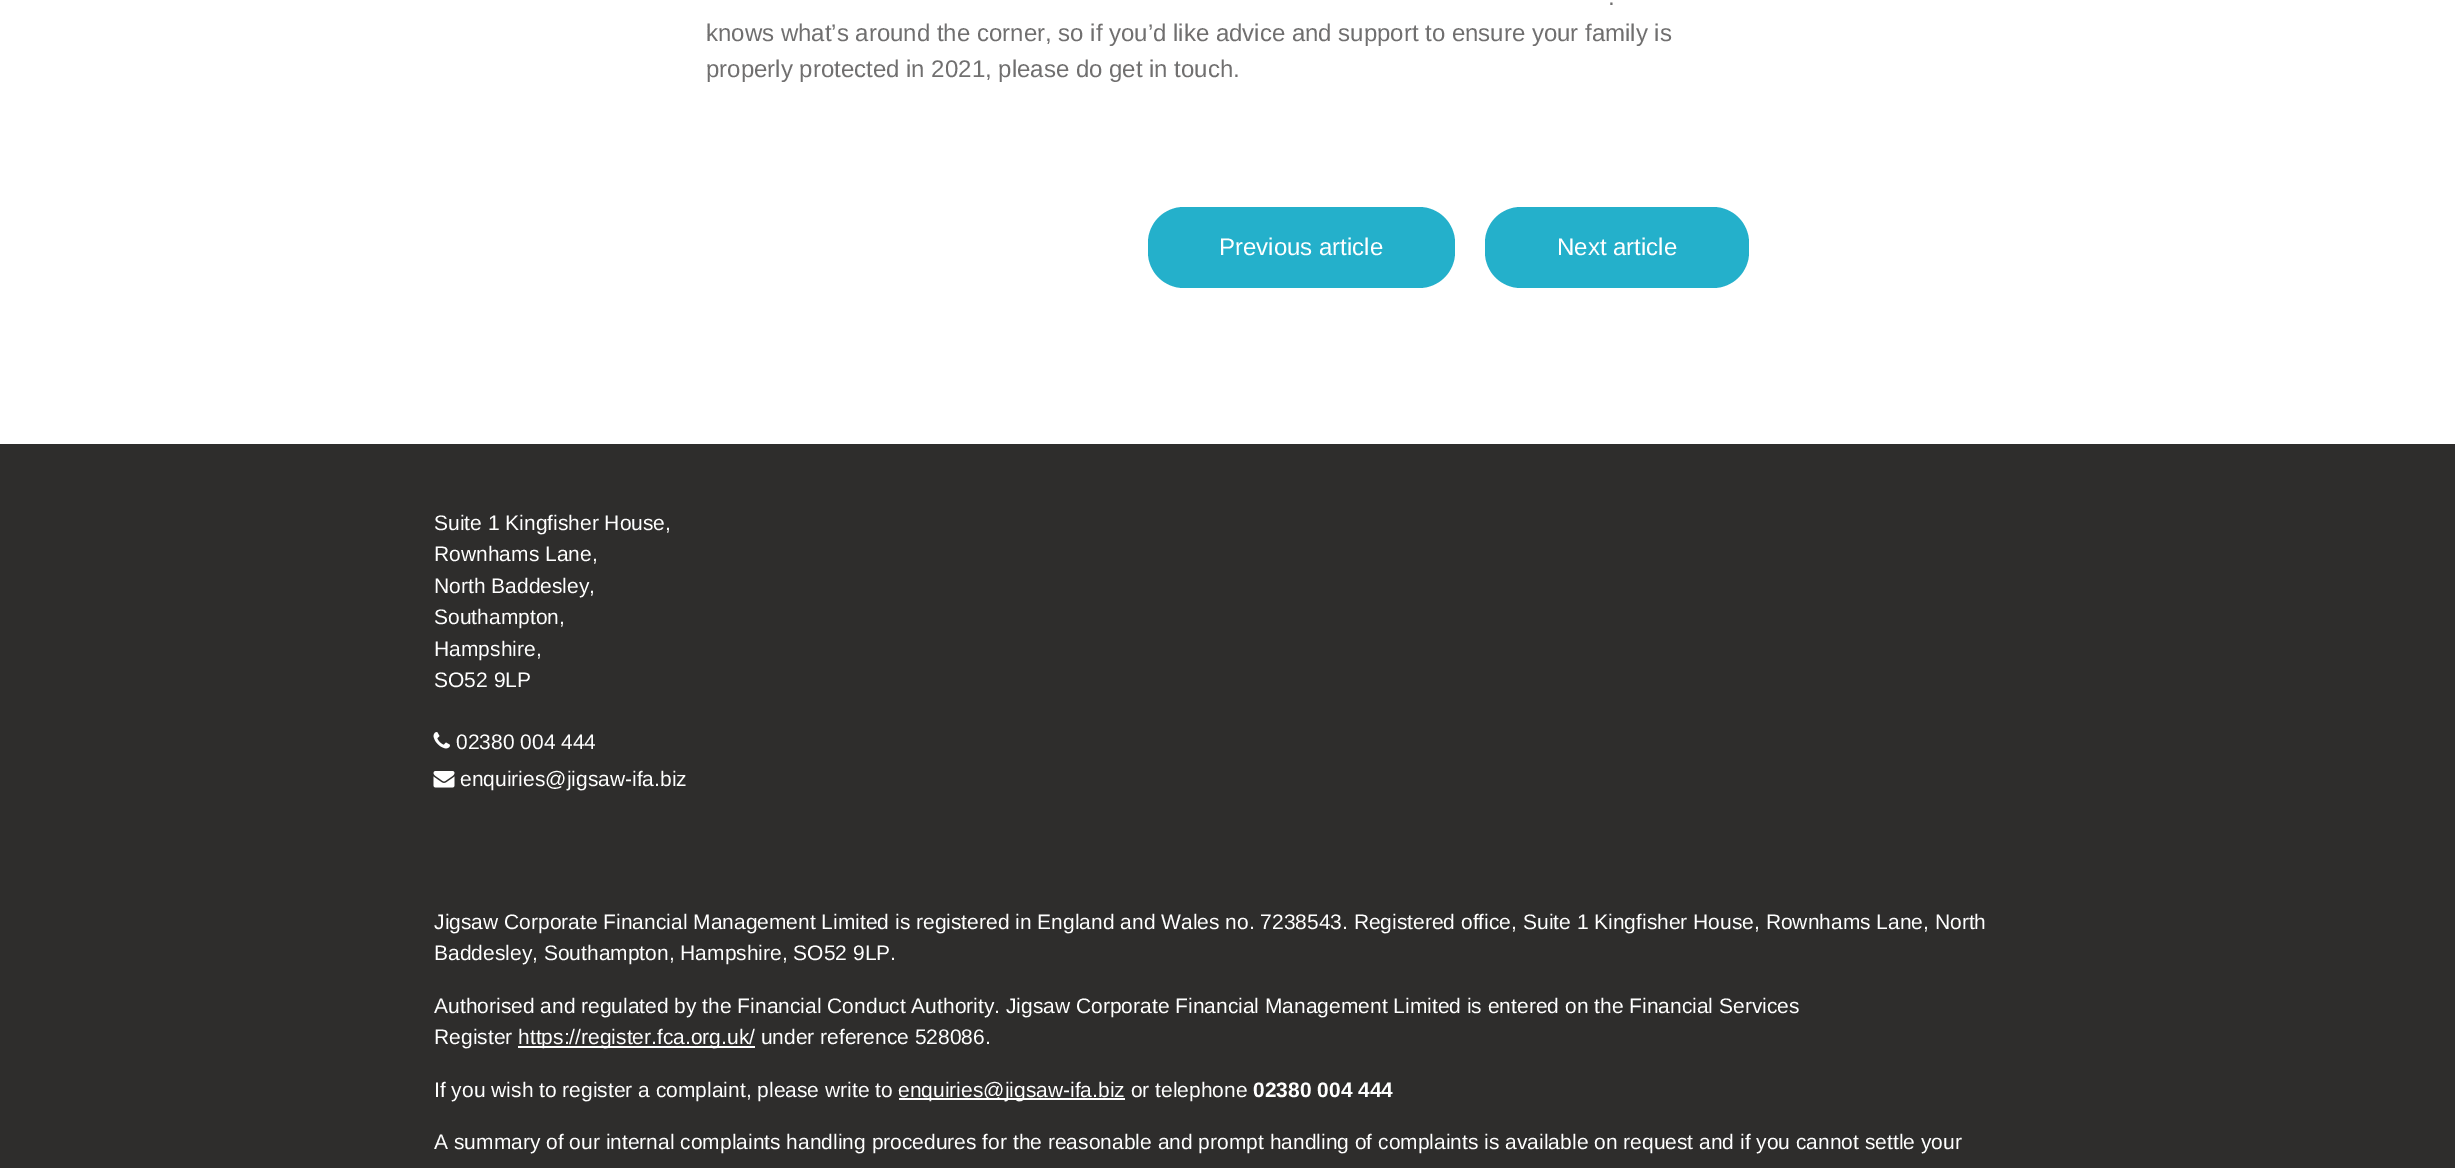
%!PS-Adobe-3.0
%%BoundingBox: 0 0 2455 1168
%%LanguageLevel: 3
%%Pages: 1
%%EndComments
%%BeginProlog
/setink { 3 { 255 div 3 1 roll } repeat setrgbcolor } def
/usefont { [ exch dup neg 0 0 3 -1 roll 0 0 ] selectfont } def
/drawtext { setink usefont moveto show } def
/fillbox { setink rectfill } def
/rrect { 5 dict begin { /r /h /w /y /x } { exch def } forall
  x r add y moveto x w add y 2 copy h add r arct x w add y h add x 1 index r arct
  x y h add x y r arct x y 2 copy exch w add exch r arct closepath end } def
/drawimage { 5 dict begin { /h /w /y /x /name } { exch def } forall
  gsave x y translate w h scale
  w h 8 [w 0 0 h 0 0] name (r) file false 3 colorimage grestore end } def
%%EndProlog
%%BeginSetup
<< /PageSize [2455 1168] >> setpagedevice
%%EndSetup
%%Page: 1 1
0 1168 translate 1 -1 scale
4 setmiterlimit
0 0 2455 1168 255 255 255 fillbox
(.) 1608 5 /LiberationSans-Regular 24 112 111 111 drawtext
(knows what’s around the corner, so if you’d like advice and support to ensure your family is) 706 41 /LiberationSans-Regular 24 112 111 111 drawtext
(properly protected in 2021, please do get in touch.) 706 77 /LiberationSans-Regular 24 112 111 111 drawtext
36 176 203 setink
1148 207 307 81 36 rrect fill
(Previous article) 1219 255 /LiberationSans-Regular 24 255 255 255 drawtext
36 176 203 setink
1485 207 264 81 36 rrect fill
(Next article) 1557 255 /LiberationSans-Regular 24 255 255 255 drawtext
0 444 2455 724 46 45 44 fillbox
(Suite 1 Kingfisher House,) 434 530 /LiberationSans-Regular 21 255 255 255 drawtext
(Rownhams Lane,) 434 561 /LiberationSans-Regular 21 255 255 255 drawtext
(North Baddesley,) 434 593 /LiberationSans-Regular 21 255 255 255 drawtext
(Southampton,) 434 624 /LiberationSans-Regular 21 255 255 255 drawtext
(Hampshire,) 434 656 /LiberationSans-Regular 21 255 255 255 drawtext
(SO52 9LP) 434 687 /LiberationSans-Regular 21 255 255 255 drawtext
(assets/img1.rgb) 433 732 17 17 drawimage
(02380 004 444) 456 749 /LiberationSans-Regular 21 255 255 255 drawtext
(assets/img2.rgb) 433 771 22 17 drawimage
(enquiries@jigsaw-ifa.biz) 460 786 /LiberationSans-Regular 21 255 255 255 drawtext
(Jigsaw Corporate Financial Management Limited is registered in England and Wales no. 7238543. Registered office, Suite 1 Kingfisher House, Rownhams Lane, North) 434 929 /LiberationSans-Regular 21 255 255 255 drawtext
(Baddesley, Southampton, Hampshire, SO52 9LP.) 434 960 /LiberationSans-Regular 21 255 255 255 drawtext
(Authorised and regulated by the Financial Conduct Authority. Jigsaw Corporate Financial Management Limited is entered on the Financial Services) 434 1013 /LiberationSans-Regular 21 255 255 255 drawtext
(Register) 434 1044 /LiberationSans-Regular 21 255 255 255 drawtext
518 1046 237 2 255 255 255 fillbox
(https://register.fca.org.uk/ under reference 528086.) 518 1044 /LiberationSans-Regular 21 255 255 255 drawtext
(If you wish to register a complaint, please write to) 434 1097 /LiberationSans-Regular 21 255 255 255 drawtext
899 1098 226 2 255 255 255 fillbox
(enquiries@jigsaw-ifa.biz or telephone) 898 1097 /LiberationSans-Regular 21 255 255 255 drawtext
(02380 004 444) 1253 1097 /LiberationSans-Bold 21 255 255 255 drawtext
(A summary of our internal complaints handling procedures for the reasonable and prompt handling of complaints is available on request and if you cannot settle your) 434 1149 /LiberationSans-Regular 21 255 255 255 drawtext
showpage
%%EOF
